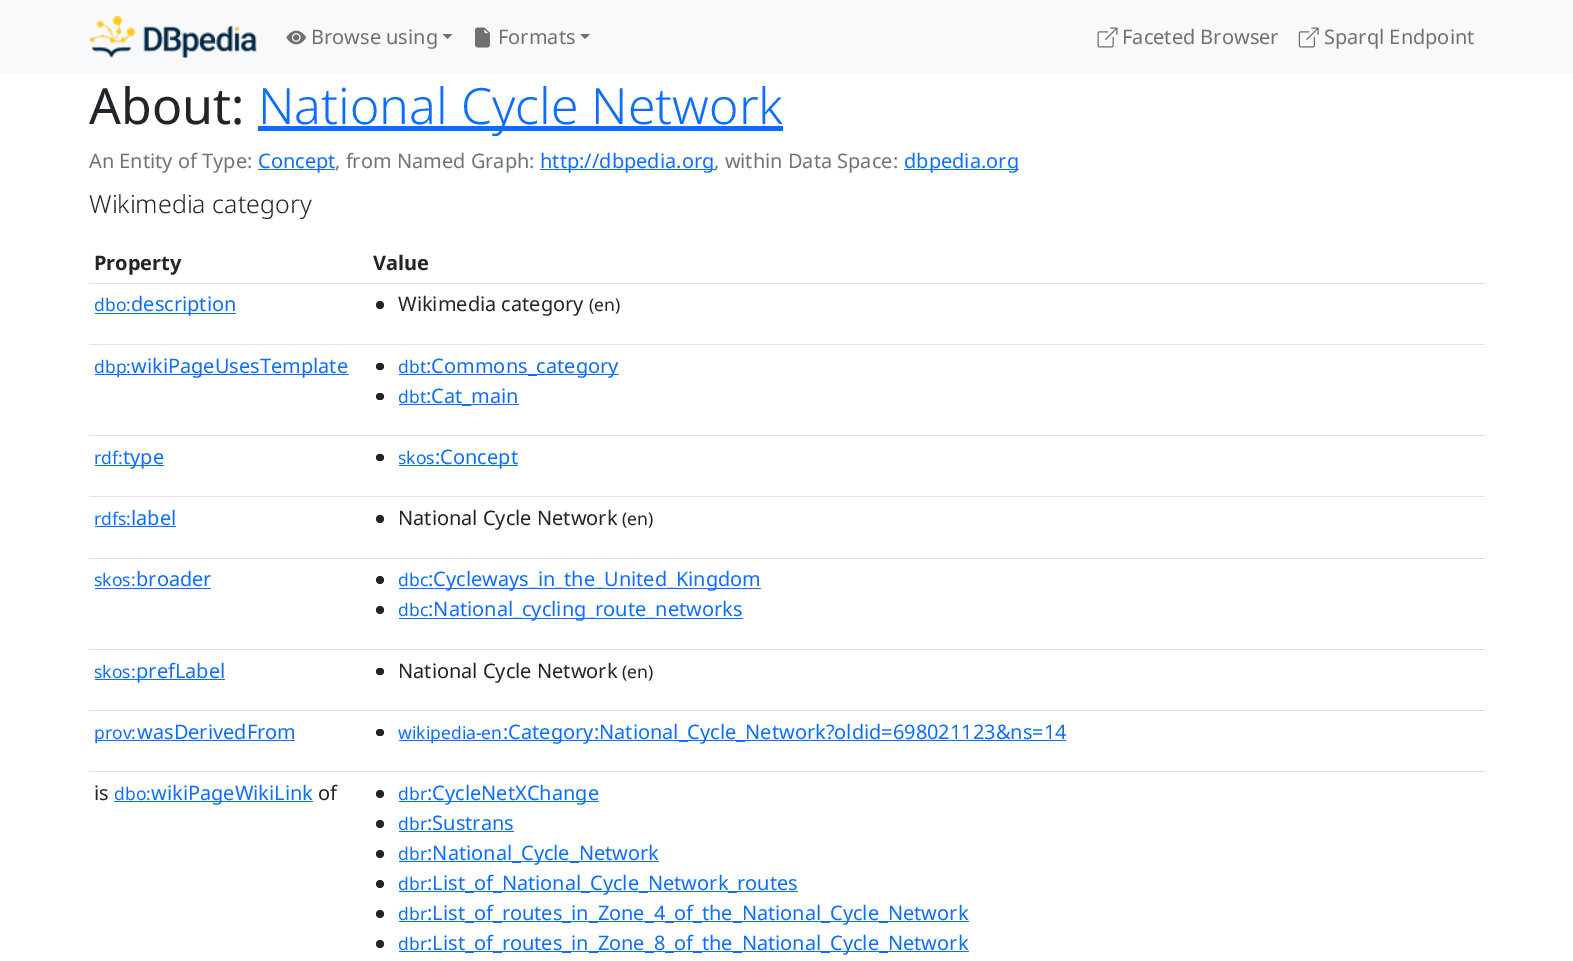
%!PS-Adobe-3.0
%%BoundingBox: 0 0 1573 961
%%LanguageLevel: 3
%%Pages: 1
%%EndComments
%%BeginProlog
/setink { 3 { 255 div 3 1 roll } repeat setrgbcolor } def
/usefont { [ exch dup neg 0 0 3 -1 roll 0 0 ] selectfont } def
/drawtext { setink usefont moveto show } def
/fillbox { setink rectfill } def
/disc { newpath 0 360 arc closepath } def
/rrect { 5 dict begin { /r /h /w /y /x } { exch def } forall
  x r add y moveto x w add y 2 copy h add r arct x w add y h add x 1 index r arct
  x y h add x y r arct x y 2 copy exch w add exch r arct closepath end } def
/drawimage { 5 dict begin { /h /w /y /x /name } { exch def } forall
  gsave x y translate w h scale
  w h 8 [w 0 0 h 0 0] name (r) file false 3 colorimage grestore end } def
%%EndProlog
%%BeginSetup
<< /PageSize [1573 961] >> setpagedevice
%%EndSetup
%%Page: 1 1
0 961 translate 1 -1 scale
4 setmiterlimit
0 0 1573 961 255 255 255 fillbox
0 0 1573 74 248 249 250 fillbox
(assets/img1.rgb) 89 16 168 42 drawimage
(assets/img2.rgb) 286 30 21 15 drawimage
(Browse using) 311 44 /NotoSans-Regular 20 112 112 113 drawtext
442.5 34 moveto 452.5 34 lineto 447.5 39 lineto closepath fill
(assets/img3.rgb) 475 27 15 21 drawimage
(Formats) 498 44 /NotoSans-Regular 20 112 112 113 drawtext
580 34 moveto 590 34 lineto 585 39 lineto closepath fill
(assets/img4.rgb) 1097 27 21 21 drawimage
(Faceted Browser) 1122 44 /NotoSans-Regular 20 112 112 113 drawtext
(assets/img5.rgb) 1298 27 21 21 drawimage
(Sparql Endpoint) 1324 44 /NotoSans-Regular 20 112 112 113 drawtext
(About:) 89 124 /NotoSans-Regular 50 33 37 41 drawtext
258 126 525 5 13 110 253 fillbox
(National Cycle Network) 258 124 /NotoSans-Light 50 13 110 253 drawtext
(An Entity of Type:) 89 168 /NotoSans-Regular 20 108 117 125 drawtext
258 169 77 1 13 110 253 fillbox
(Concept) 258 168 /NotoSans-Regular 20 13 110 253 drawtext
(, from Named Graph:) 335 168 /NotoSans-Regular 20 108 117 125 drawtext
540 169 175 1 13 110 253 fillbox
(http://dbpedia.org) 540 168 /NotoSans-Regular 20 13 110 253 drawtext
(, within Data Space:) 714 168 /NotoSans-Regular 20 108 117 125 drawtext
904 169 115 1 13 110 253 fillbox
(dbpedia.org) 904 168 /NotoSans-Regular 20 13 110 253 drawtext
(Wikimedia category) 89 213 /NotoSans-Light 25 33 37 41 drawtext
(Property) 94 270 /NotoSans-Bold 20 33 37 41 drawtext
89 283 1396 1 222 226 230 fillbox
(Value) 373 270 /NotoSans-Bold 20 33 37 41 drawtext
(dbo:) 94 311 /NotoSans-Regular 17.5 13 110 253 drawtext
95 313 141 1 13 110 253 fillbox
(description) 131 311 /NotoSans-Regular 20 13 110 253 drawtext
89 344 1396 1 222 226 230 fillbox
33 37 41 setink
380 305 4 disc fill
(Wikimedia category) 398 311 /NotoSans-Regular 20 33 37 41 drawtext
(\(en\)) 589 311 /NotoSans-Regular 17.5 33 37 41 drawtext
95 374 254 1 13 110 253 fillbox
(dbp:) 94 373 /NotoSans-Regular 17.5 13 110 253 drawtext
(wikiPageUsesTemplate) 131 373 /NotoSans-Regular 20 13 110 253 drawtext
89 435 1396 1 222 226 230 fillbox
33 37 41 setink
376 363 8 7 3.5 rrect fill
(dbt) 398 373 /NotoSans-Regular 17.5 13 110 253 drawtext
399 374 220 1 13 110 253 fillbox
(:Commons_category) 426 373 /NotoSans-Regular 20 13 110 253 drawtext
33 37 41 setink
376 393 8 7 3.5 rrect fill
(dbt) 398 403 /NotoSans-Regular 17.5 13 110 253 drawtext
399 404 120 1 13 110 253 fillbox
(:Cat_main) 426 403 /NotoSans-Regular 20 13 110 253 drawtext
(rdf:) 94 464 /NotoSans-Regular 17.5 13 110 253 drawtext
95 465 69 1 13 110 253 fillbox
(type) 123 464 /NotoSans-Regular 20 13 110 253 drawtext
89 496 1396 1 222 226 230 fillbox
33 37 41 setink
376 454 8 7 3.5 rrect fill
(skos) 398 464 /NotoSans-Regular 17.5 13 110 253 drawtext
399 465 119 1 13 110 253 fillbox
(:Concept) 435 464 /NotoSans-Regular 20 13 110 253 drawtext
(rdfs:) 94 525 /NotoSans-Regular 17.5 13 110 253 drawtext
95 526 81 1 13 110 253 fillbox
(label) 131 525 /NotoSans-Regular 20 13 110 253 drawtext
89 558 1396 1 222 226 230 fillbox
33 37 41 setink
380 519 4 disc fill
(National Cycle Network) 398 525 /NotoSans-Regular 20 33 37 41 drawtext
(\(en\)) 622 525 /NotoSans-Regular 17.5 33 37 41 drawtext
(skos:) 94 586 /NotoSans-Regular 17.5 13 110 253 drawtext
95 588 116 1 13 110 253 fillbox
(broader) 136 586 /NotoSans-Regular 20 13 110 253 drawtext
89 649 1396 1 222 226 230 fillbox
33 37 41 setink
380 580 4 disc fill
(dbc) 398 586 /NotoSans-Regular 17.5 13 110 253 drawtext
399 588 362 1 13 110 253 fillbox
(:Cycleways_in_the_United_Kingdom) 428 586 /NotoSans-Regular 20 13 110 253 drawtext
33 37 41 setink
380 610 4 disc fill
(dbc) 398 616 /NotoSans-Regular 17.5 13 110 253 drawtext
399 618 344 1 13 110 253 fillbox
(:National_cycling_route_networks) 428 616 /NotoSans-Regular 20 13 110 253 drawtext
(skos:) 94 678 /NotoSans-Regular 17.5 13 110 253 drawtext
95 679 130 1 13 110 253 fillbox
(prefLabel) 136 678 /NotoSans-Regular 20 13 110 253 drawtext
89 710 1396 1 222 226 230 fillbox
33 37 41 setink
376 668 8 7 3.5 rrect fill
(National Cycle Network) 398 678 /NotoSans-Regular 20 33 37 41 drawtext
(\(en\)) 622 678 /NotoSans-Regular 17.5 33 37 41 drawtext
95 740 200 1 13 110 253 fillbox
(prov:) 94 739 /NotoSans-Regular 17.5 13 110 253 drawtext
(wasDerivedFrom) 137 739 /NotoSans-Regular 20 13 110 253 drawtext
89 771 1396 1 222 226 230 fillbox
33 37 41 setink
376 729 8 7 3.5 rrect fill
399 740 667 1 13 110 253 fillbox
(wikipedia-en) 398 739 /NotoSans-Regular 17.5 13 110 253 drawtext
(:Category:National_Cycle_Network?oldid=698021123&ns=14) 503 739 /NotoSans-Regular 20 13 110 253 drawtext
(is) 94 800 /NotoSans-Regular 20 33 37 41 drawtext
(dbo:) 114 800 /NotoSans-Regular 17.5 13 110 253 drawtext
114 801 199 1 13 110 253 fillbox
(wikiPageWikiLink) 151 800 /NotoSans-Regular 20 13 110 253 drawtext
(of) 318 800 /NotoSans-Regular 20 33 37 41 drawtext
380 794 4 disc fill
(dbr) 398 800 /NotoSans-Regular 17.5 13 110 253 drawtext
399 801 200 1 13 110 253 fillbox
(:CycleNetXChange) 427 800 /NotoSans-Regular 20 13 110 253 drawtext
33 37 41 setink
380 824 4 disc fill
(dbr) 398 830 /NotoSans-Regular 17.5 13 110 253 drawtext
399 831 115 1 13 110 253 fillbox
(:Sustrans) 427 830 /NotoSans-Regular 20 13 110 253 drawtext
33 37 41 setink
380 854 4 disc fill
(dbr) 398 860 /NotoSans-Regular 17.5 13 110 253 drawtext
399 861 260 1 13 110 253 fillbox
(:National_Cycle_Network) 427 860 /NotoSans-Regular 20 13 110 253 drawtext
33 37 41 setink
380 884 4 disc fill
(dbr) 398 890 /NotoSans-Regular 17.5 13 110 253 drawtext
399 891 399 1 13 110 253 fillbox
(:List_of_National_Cycle_Network_routes) 427 890 /NotoSans-Regular 20 13 110 253 drawtext
33 37 41 setink
380 914 4 disc fill
(dbr) 398 920 /NotoSans-Regular 17.5 13 110 253 drawtext
399 921 570 1 13 110 253 fillbox
(:List_of_routes_in_Zone_4_of_the_National_Cycle_Network) 427 920 /NotoSans-Regular 20 13 110 253 drawtext
33 37 41 setink
380 944 4 disc fill
(dbr) 398 950 /NotoSans-Regular 17.5 13 110 253 drawtext
399 951 570 1 13 110 253 fillbox
(:List_of_routes_in_Zone_8_of_the_National_Cycle_Network) 427 950 /NotoSans-Regular 20 13 110 253 drawtext
showpage
%%EOF
